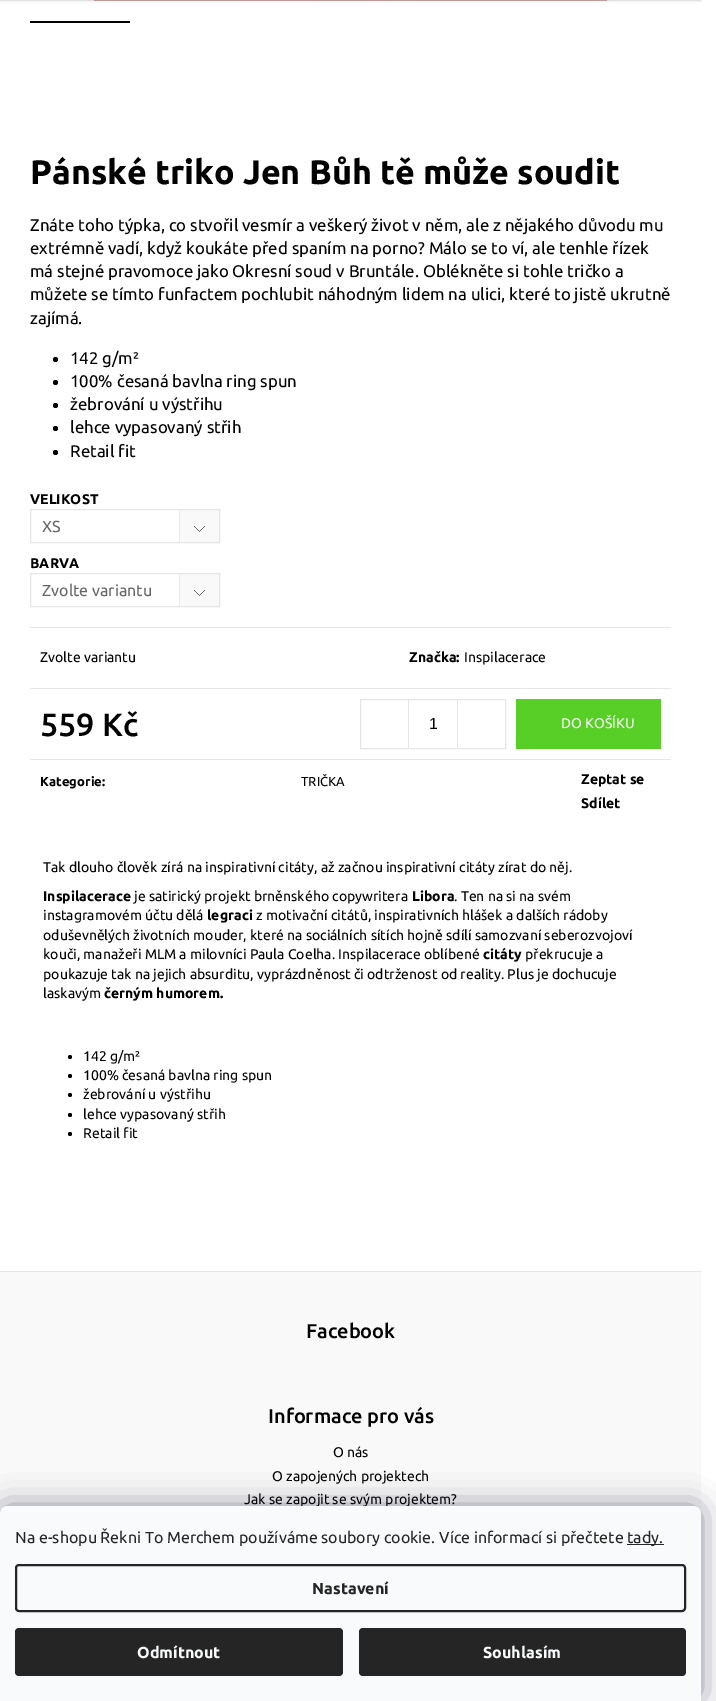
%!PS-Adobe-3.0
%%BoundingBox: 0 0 716 1701
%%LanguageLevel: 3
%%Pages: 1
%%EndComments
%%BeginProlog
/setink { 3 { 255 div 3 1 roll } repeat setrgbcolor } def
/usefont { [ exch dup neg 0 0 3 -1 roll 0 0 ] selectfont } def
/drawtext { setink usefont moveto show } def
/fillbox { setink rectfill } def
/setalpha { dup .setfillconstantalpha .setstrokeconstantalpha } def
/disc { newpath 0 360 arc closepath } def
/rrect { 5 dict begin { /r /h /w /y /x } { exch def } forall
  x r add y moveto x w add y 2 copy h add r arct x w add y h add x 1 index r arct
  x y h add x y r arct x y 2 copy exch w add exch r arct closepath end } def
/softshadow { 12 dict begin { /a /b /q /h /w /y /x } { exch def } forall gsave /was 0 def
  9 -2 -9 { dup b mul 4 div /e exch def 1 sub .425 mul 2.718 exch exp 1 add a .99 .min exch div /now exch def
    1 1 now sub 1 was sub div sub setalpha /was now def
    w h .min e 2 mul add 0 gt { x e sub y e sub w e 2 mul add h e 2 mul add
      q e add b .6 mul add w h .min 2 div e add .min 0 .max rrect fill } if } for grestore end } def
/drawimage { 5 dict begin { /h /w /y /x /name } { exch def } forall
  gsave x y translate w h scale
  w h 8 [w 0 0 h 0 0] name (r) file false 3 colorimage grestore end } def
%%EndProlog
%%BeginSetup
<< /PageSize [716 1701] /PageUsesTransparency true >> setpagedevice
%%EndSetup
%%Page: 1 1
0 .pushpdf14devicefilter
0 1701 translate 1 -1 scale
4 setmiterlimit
0 0 716 1701 255 255 255 fillbox
(assets/img1.rgb) 93 0 515 1 drawimage
0 0 0 setink
0 -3 701 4 0 1 0.16 softshadow
30 21 100 2 0 0 0 fillbox
(Pánské triko Jen Bůh tě může soudit) 30 184 /Ubuntu-Bold 34 0 0 0 drawtext
(Znáte toho týpka, co stvořil vesmír a veškerý život v něm, ale z nějakého důvodu mu) 30 231 /Ubuntu-Regular 16.8 0 0 0 drawtext
(extrémně vadí, když koukáte před spaním na porno? Málo se to ví, ale tenhle řízek) 30 254 /Ubuntu-Regular 16.8 0 0 0 drawtext
(má stejné pravomoce jako Okresní soud v Bruntále. Oblékněte si tohle tričko a) 30 277 /Ubuntu-Regular 16.8 0 0 0 drawtext
(můžete se tímto funfactem pochlubit náhodným lidem na ulici, které to jistě ukrutně) 30 300 /Ubuntu-Regular 16.8 0 0 0 drawtext
(zajímá.) 30 324 /Ubuntu-Regular 16.8 0 0 0 drawtext
55.5 359.5 2.5 disc fill
(142 g/m²) 70 364 /Ubuntu-Regular 16.8 0 0 0 drawtext
55.5 382.5 2.5 disc fill
(100% česaná bavlna ring spun) 70 387 /Ubuntu-Regular 16.8 0 0 0 drawtext
55.5 405.5 2.5 disc fill
(žebrování u výstřihu) 70 410 /Ubuntu-Regular 16.8 0 0 0 drawtext
55.5 428.5 2.5 disc fill
(lehce vypasovaný střih) 70 433 /Ubuntu-Regular 16.8 0 0 0 drawtext
55.5 452.5 2.5 disc fill
(Retail fit) 70 457 /Ubuntu-Regular 16.8 0 0 0 drawtext
(VELIKOST) 30 504 /Ubuntu-Bold 14 0 0 0 drawtext
(assets/img2.rgb) 179 510 40 32 drawimage
230 230 230 setink
30.5 509.5 189 33 rectstroke
(XS) 42 532 /Ubuntu-Regular 16 102 102 102 drawtext
(BARVA) 30 568 /Ubuntu-Bold 14 0 0 0 drawtext
(assets/img2.rgb) 179 574 40 32 drawimage
230 230 230 setink
30.5 573.5 189 33 rectstroke
(Zvolte variantu) 42 596 /Ubuntu-Regular 16 102 102 102 drawtext
30 627 641 1 231 231 231 fillbox
30 688 641 1 231 231 231 fillbox
(Zvolte variantu) 40 662 /Ubuntu-Regular 14 0 0 0 drawtext
(Značka:) 409 662 /Ubuntu-Bold 14 0 0 0 drawtext
(Inspilacerace) 464 662 /Ubuntu-Regular 14 0 0 0 drawtext
30 759 641 1 231 231 231 fillbox
(559 Kč) 40 736 /Ubuntu-Medium 32 0 0 0 drawtext
230 230 230 setink
360.5 699.5 145 49 rectstroke
408 700 1 48 230 230 230 fillbox
(1) 429 729 /LiberationSans-Regular 16 0 0 0 drawtext
457 700 1 48 230 230 230 fillbox
516 699 145 50 87 207 38 fillbox
(DO KOŠÍKU) 561 728 /Ubuntu-Regular 14 255 255 255 drawtext
(Kategorie:) 40 786 /Ubuntu-Bold 13 0 0 0 drawtext
(TRIČKA) 301 786 /Ubuntu-Regular 13 0 0 0 drawtext
(Zeptat se) 581 784 /Ubuntu-Bold 14 0 0 0 drawtext
(Sdílet) 581 808 /Ubuntu-Bold 14 0 0 0 drawtext
(Tak dlouho člověk zírá na inspirativní citáty, až začnou inspirativní citáty zírat do něj.) 43 872 /Ubuntu-Regular 14 0 0 0 drawtext
(Inspilacerace) 43 901 /Ubuntu-Bold 14 0 0 0 drawtext
(je satirický projekt brněnského copywritera) 134 901 /Ubuntu-Regular 14 0 0 0 drawtext
(Libora) 412 901 /Ubuntu-Bold 14 0 0 0 drawtext
(. Ten na si na svém) 454 901 /Ubuntu-Regular 14 0 0 0 drawtext
(instagramovém účtu dělá) 43 920 /Ubuntu-Regular 14 0 0 0 drawtext
(legraci) 207 920 /Ubuntu-Bold 14 0 0 0 drawtext
(z motivační citátů, inspirativních hlášek a dalších rádoby) 256 920 /Ubuntu-Regular 14 0 0 0 drawtext
(oduševnělých životních mouder, které na sociálních sítích hojně sdílí samozvaní seberozvojoví) 43 940 /Ubuntu-Regular 14 0 0 0 drawtext
(kouči, manažeři MLM a milovníci Paula Coelha. Inspilacerace oblíbené) 43 959 /Ubuntu-Regular 14 0 0 0 drawtext
(citáty) 483 959 /Ubuntu-Bold 14 0 0 0 drawtext
(překrucuje a) 525 959 /Ubuntu-Regular 14 0 0 0 drawtext
(poukazuje tak na jejich absurditu, vyprázdněnost či odtrženost od reality. Plus je dochucuje) 43 979 /Ubuntu-Regular 14 0 0 0 drawtext
(laskavým) 43 998 /Ubuntu-Regular 14 0 0 0 drawtext
(černým humorem.) 104 998 /Ubuntu-Bold 14 0 0 0 drawtext
70 1057 2 disc fill
(142 g/m²) 83 1061 /Ubuntu-Regular 14 0 0 0 drawtext
70 1076 2 disc fill
(100% česaná bavlna ring spun) 83 1080 /Ubuntu-Regular 14 0 0 0 drawtext
70 1095 2 disc fill
(žebrování u výstřihu) 83 1099 /Ubuntu-Regular 14 0 0 0 drawtext
70 1115 2 disc fill
(lehce vypasovaný střih) 83 1119 /Ubuntu-Regular 14 0 0 0 drawtext
70 1134 2 disc fill
(Retail fit) 83 1138 /Ubuntu-Regular 14 0 0 0 drawtext
0 1272 701 242 249 249 249 fillbox
0 1271 701 1 230 230 230 fillbox
(Facebook) 306 1338 /Ubuntu-Medium 20 0 0 0 drawtext
(Informace pro vás) 268 1423 /Ubuntu-Medium 20 0 0 0 drawtext
(O nás) 333 1457 /Ubuntu-Regular 14 0 0 0 drawtext
(O zapojených projektech) 272 1481 /Ubuntu-Regular 14 0 0 0 drawtext
(Jak se zapojit se svým projektem?) 244 1504 /Ubuntu-Regular 14 0 0 0 drawtext
27 25 57 setink
0 1506 701 195 8 15 0.5 softshadow
248 250 251 setink
8 1506 moveto 693 1506 lineto 697.5 1506 701 1509.5 701 1514 curveto 701 1701 lineto 0 1701 lineto 0 1514 lineto 0 1509.5 3.5 1506 8 1506 curveto closepath fill
(Na e-shopu Řekni To Merchem používáme soubory cookie. Více informací si přečtete) 15 1543 /Ubuntu-Regular 16 37 37 37 drawtext
627 1544 37 1 37 37 37 fillbox
(tady.) 627 1543 /Ubuntu-Regular 16 37 37 37 drawtext
2 setlinewidth
16 1565 669 46 3 rrect stroke
(Nastavení) 312 1594 /Ubuntu-Bold 16 37 37 37 drawtext
15 1628 328 48 4 rrect fill
(Odmítnout) 137 1658 /Ubuntu-Bold 16 248 250 251 drawtext
37 37 37 setink
359 1628 327 48 4 rrect fill
(Souhlasím) 483 1658 /Ubuntu-Bold 16 248 250 251 drawtext
.poppdf14devicefilter showpage
%%EOF
